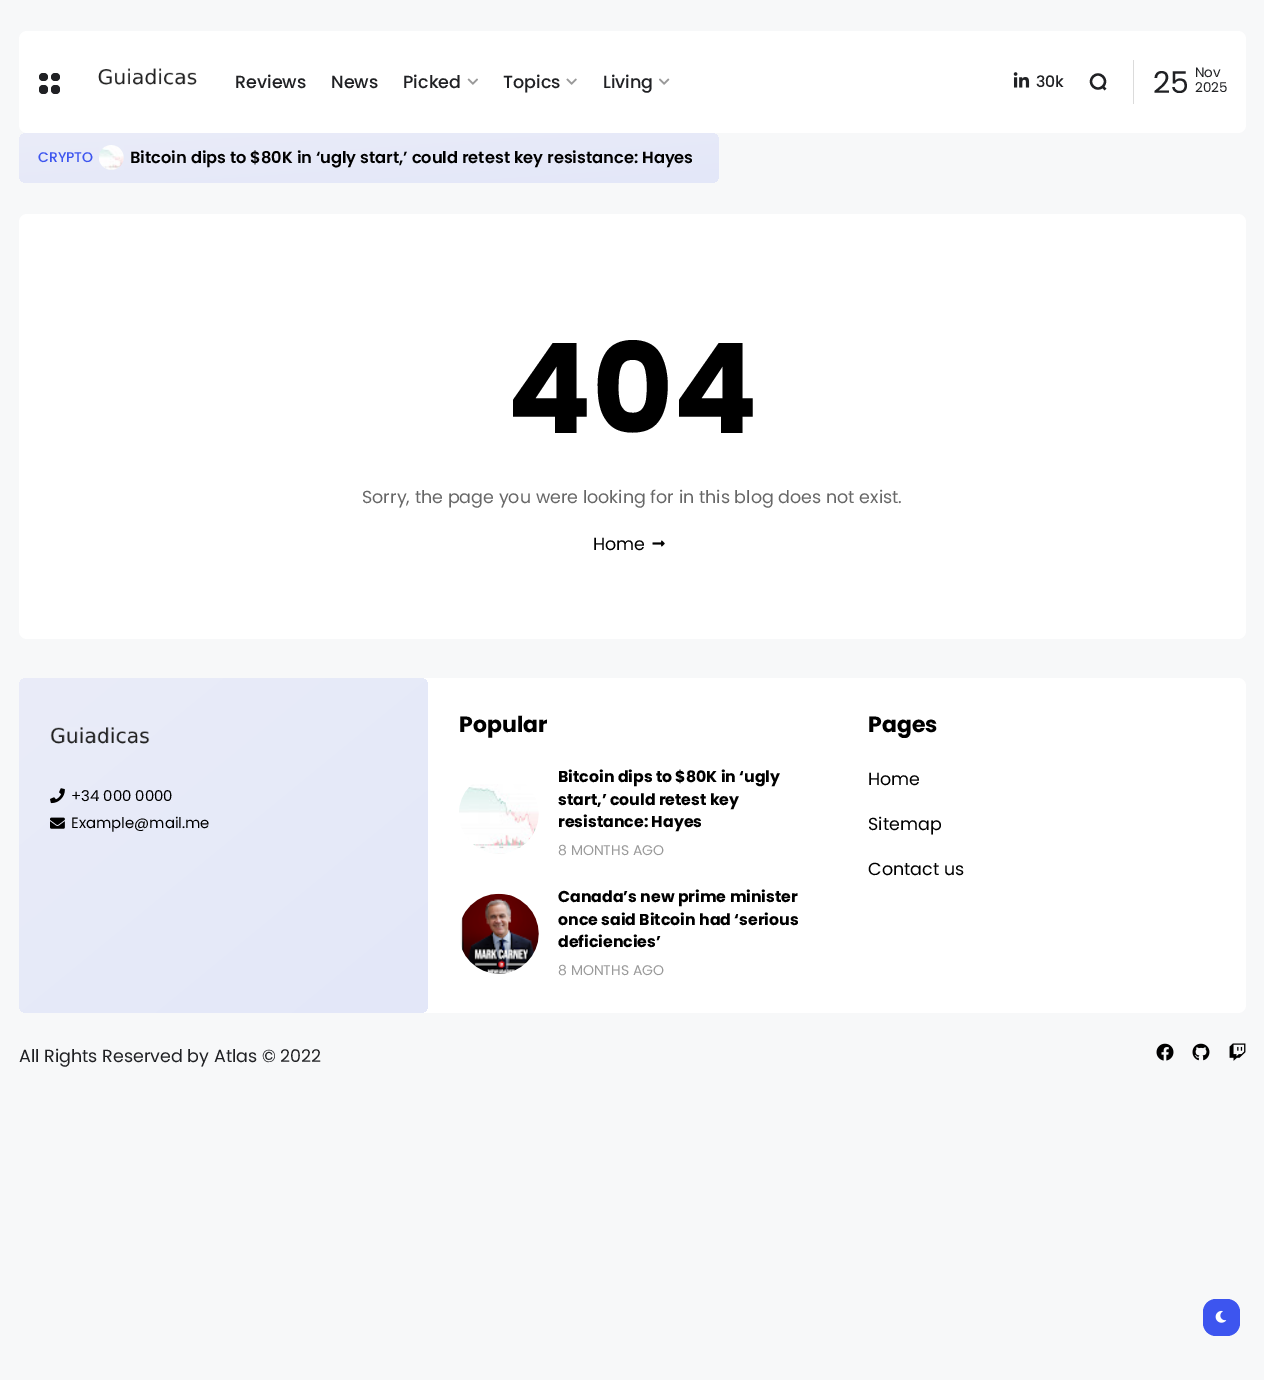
%!PS-Adobe-3.0
%%BoundingBox: 0 0 1264 1380
%%LanguageLevel: 3
%%Pages: 1
%%EndComments
%%BeginProlog
/setink { 3 { 255 div 3 1 roll } repeat setrgbcolor } def
/usefont { [ exch dup neg 0 0 3 -1 roll 0 0 ] selectfont } def
/drawtext { setink usefont moveto show } def
/fillbox { setink rectfill } def
/disc { newpath 0 360 arc closepath } def
/rrect { 5 dict begin { /r /h /w /y /x } { exch def } forall
  x r add y moveto x w add y 2 copy h add r arct x w add y h add x 1 index r arct
  x y h add x y r arct x y 2 copy exch w add exch r arct closepath end } def
/drawimage { 5 dict begin { /h /w /y /x /name } { exch def } forall
  gsave x y translate w h scale
  w h 8 [w 0 0 h 0 0] name (r) file false 3 colorimage grestore end } def
%%EndProlog
%%BeginSetup
<< /PageSize [1264 1380] >> setpagedevice
%%EndSetup
%%Page: 1 1
0 1380 translate 1 -1 scale
4 setmiterlimit
0 0 1264 1380 247 248 249 fillbox
255 255 255 setink
19 31 1227 102 8 rrect fill
32 33 36 setink
39 73 9 8 4 rrect fill
39 85 9 9 4 rrect fill
51 73 9 8 4 rrect fill
51 85 9 9 4 rrect fill
(assets/img1.rgb) 98 68 99 17 drawimage
(Reviews) 235 88 /Poppins-Medium 17.5 32 33 36 drawtext
(News) 331 88 /Poppins-Medium 17.5 32 33 36 drawtext
(Picked) 403 88 /Poppins-Medium 17.5 32 33 36 drawtext
(assets/img2.rgb) 467 78 11 7 drawimage
(Topics) 503 88 /Poppins-Medium 17.5 32 33 36 drawtext
(assets/img3.rgb) 566 78 11 7 drawimage
(Living) 603 88 /Poppins-Medium 17.5 32 33 36 drawtext
(assets/img4.rgb) 659 78 11 7 drawimage
(assets/img5.rgb) 1013 72 17 16 drawimage
(30k) 1036 87 /Poppins-Medium 15.75 32 33 36 drawtext
2.3 setlinewidth
1098 81.5 7 disc stroke
1103 87 moveto 1105.5 89.5 lineto stroke
1133 60 1 44 219 219 219 fillbox
(25) 1153 93 /Poppins-Regular 30 32 33 36 drawtext
(Nov) 1195 77 /Poppins-Regular 13.5 32 33 36 drawtext
(2025) 1195 92 /Poppins-Regular 13.5 32 33 36 drawtext
gsave 19 133 700 50 8 rrect clip newpath
<< /ShadingType 2 /ColorSpace /DeviceRGB /Coords [550 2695 351 -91] /Extend [true true] /Function << /FunctionType 2 /Domain [0 1] /C0 [0.239 0.333 0.937] /C1 [0.969 0.973 0.976] /N 1 >> >> shfill grestore
(CRYPTO) 38 162 /Poppins-Medium 14 61 85 239 drawtext
(assets/img6.rgb) 99 145 25 25 drawimage
(Bitcoin dips to $80K in ‘ugly start,’ could retest key resistance: Hayes) 130 163 /Poppins-SemiBold 16.25 0 0 0 drawtext
255 255 255 setink
19 214 1227 425 8 rrect fill
(404) 507 433 /Poppins-Bold 125 0 0 0 drawtext
(Sorry, the page you were looking for in this blog does not exist.) 362 503 /Poppins-Regular 17.5 103 103 103 drawtext
(Home) 593 550 /Poppins-Regular 17.5 0 0 0 drawtext
(assets/img7.rgb) 652 540 13 7 drawimage
255 255 255 setink
19 678 1227 335 8 rrect fill
gsave 19 678 409 335 8 rrect clip newpath
<< /ShadingType 2 /ColorSpace /DeviceRGB /Coords [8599 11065 -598 -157] /Extend [true true] /Function << /FunctionType 2 /Domain [0 1] /C0 [0.239 0.333 0.937] /C1 [0.969 0.973 0.976] /N 1 >> >> shfill grestore
(assets/img8.rgb) 50 727 100 17 drawimage
(assets/img9.rgb) 50 788 15 16 drawimage
(+34 000 0000) 71 801 /Poppins-Regular 14.9 0 0 0 drawtext
(assets/img10.rgb) 50 817 15 12 drawimage
(Example@mail.me) 71 828 /Poppins-Regular 14.9 0 0 0 drawtext
(Popular) 459 732 /Poppins-Bold 22 0 0 0 drawtext
(assets/img11.rgb) 459 784 80 70 drawimage
(Bitcoin dips to $80K in ‘ugly) 558 782 /Poppins-Bold 15.75 0 0 0 drawtext
(start,’ could retest key) 558 805 /Poppins-Bold 15.75 0 0 0 drawtext
(resistance: Hayes) 558 827 /Poppins-Bold 15.75 0 0 0 drawtext
(8 MONTHS AGO) 558 855 /Poppins-Regular 14 153 153 153 drawtext
(assets/img12.rgb) 460 893 79 81 drawimage
(Canada’s new prime minister) 558 902 /Poppins-Bold 15.75 0 0 0 drawtext
(once said Bitcoin had ‘serious) 558 925 /Poppins-Bold 15.75 0 0 0 drawtext
(deficiencies’) 558 947 /Poppins-Bold 15.75 0 0 0 drawtext
(8 MONTHS AGO) 558 975 /Poppins-Regular 14 153 153 153 drawtext
(Pages) 868 732 /Poppins-Bold 22 0 0 0 drawtext
(Home) 868 785 /Poppins-Regular 17.5 0 0 0 drawtext
(Sitemap) 868 830 /Poppins-Regular 17.5 0 0 0 drawtext
(Contact us) 868 875 /Poppins-Regular 17.5 0 0 0 drawtext
(All Rights Reserved by Atlas © 2022) 19 1062 /Poppins-Regular 17.5 32 33 36 drawtext
(assets/img13.rgb) 1156 1043 18 18 drawimage
(assets/img14.rgb) 1192 1043 18 18 drawimage
(assets/img15.rgb) 1229 1043 17 18 drawimage
61 85 239 setink
1203 1299 37 37 13 rrect fill
(assets/img16.rgb) 1215 1310 12 13 drawimage
showpage
%%EOF
